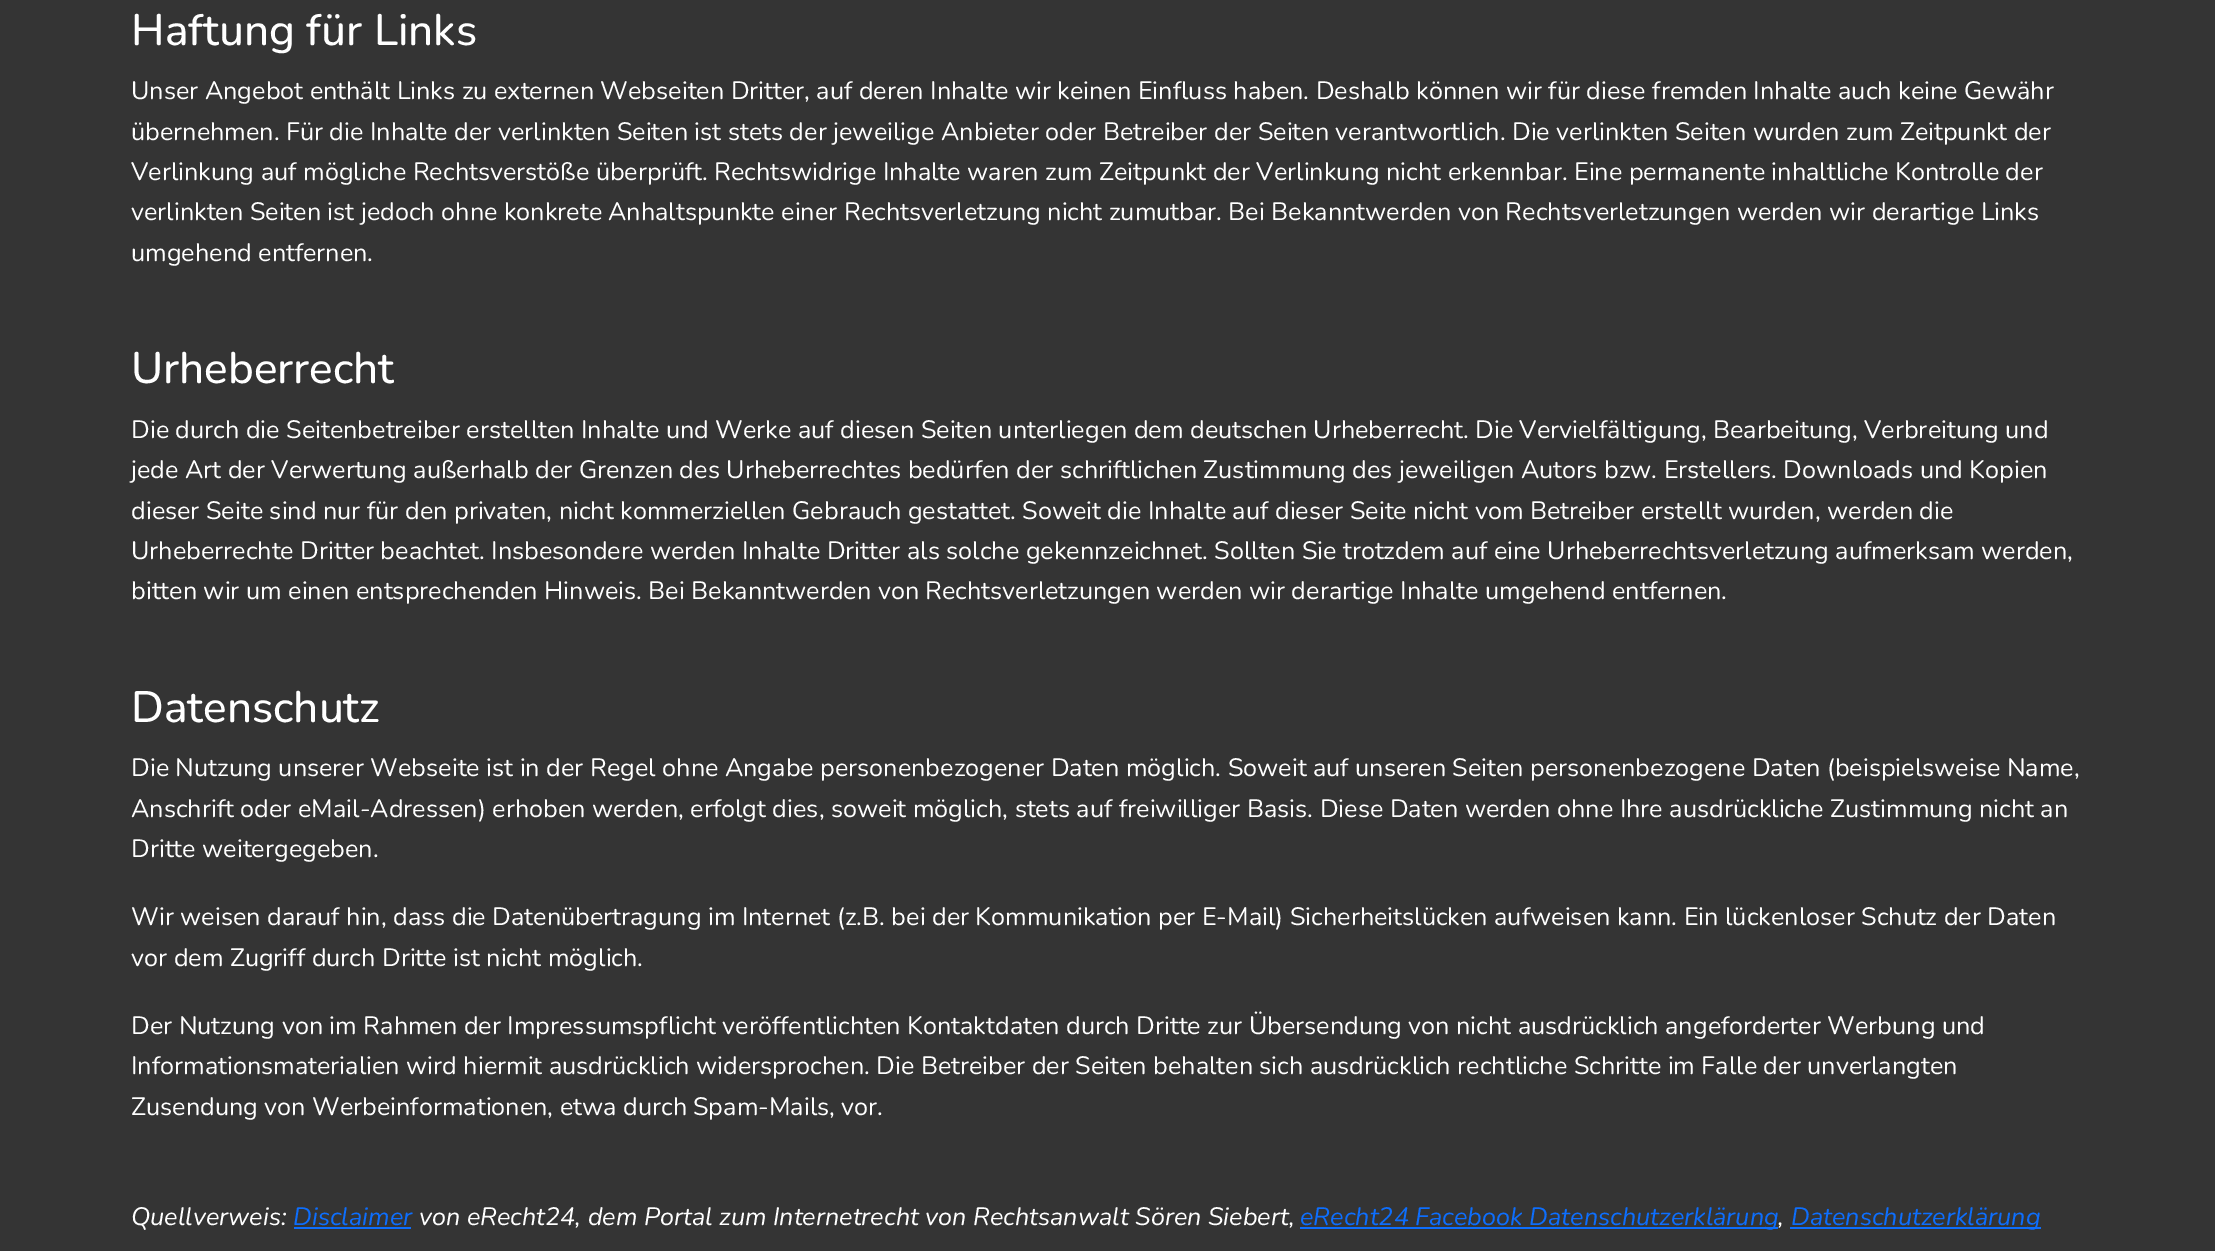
%!PS-Adobe-3.0
%%BoundingBox: 0 0 2215 1251
%%LanguageLevel: 3
%%Pages: 1
%%EndComments
%%BeginProlog
/setink { 3 { 255 div 3 1 roll } repeat setrgbcolor } def
/usefont { [ exch dup neg 0 0 3 -1 roll 0 0 ] selectfont } def
/drawtext { setink usefont moveto show } def
/fillbox { setink rectfill } def
%%EndProlog
%%BeginSetup
<< /PageSize [2215 1251] >> setpagedevice
%%EndSetup
%%Page: 1 1
0 1251 translate 1 -1 scale
4 setmiterlimit
0 0 2215 1251 52 52 52 fillbox
(Haftung für Links) 131 45 /Nunito-Medium 44 255 255 255 drawtext
(Unser Angebot enthält Links zu externen Webseiten Dritter, auf deren Inhalte wir keinen Einfluss haben. Deshalb können wir für diese fremden Inhalte auch keine Gewähr) 131 99 /Nunito-Regular 25.2 255 255 255 drawtext
(übernehmen. Für die Inhalte der verlinkten Seiten ist stets der jeweilige Anbieter oder Betreiber der Seiten verantwortlich. Die verlinkten Seiten wurden zum Zeitpunkt der) 131 140 /Nunito-Regular 25.2 255 255 255 drawtext
(Verlinkung auf mögliche Rechtsverstöße überprüft. Rechtswidrige Inhalte waren zum Zeitpunkt der Verlinkung nicht erkennbar. Eine permanente inhaltliche Kontrolle der) 131 180 /Nunito-Regular 25.2 255 255 255 drawtext
(verlinkten Seiten ist jedoch ohne konkrete) 131 220 /Nunito-Regular 25.2 255 255 255 drawtext
(Anhaltspunkte einer Rechtsverletzung nicht zumutbar. Bei Bekanntwerden von Rechtsverletzungen werden wir derartige Links) 608 220 /Nunito-Regular 25.2 255 255 255 drawtext
(umgehend entfernen.) 131 261 /Nunito-Regular 25.2 255 255 255 drawtext
(Urheberrecht) 131 383 /Nunito-Medium 44 255 255 255 drawtext
(Die durch die Seitenbetreiber erstellten Inhalte und Werke auf diesen Seiten unterliegen dem deutschen Urheberrecht. Die Vervielfältigung, Bearbeitung, Verbreitung und) 131 438 /Nunito-Regular 25.2 255 255 255 drawtext
(jede Art der Verwertung außerhalb der Grenzen des Urheberrechtes bedürfen der schriftlichen Zustimmung des jeweiligen Autors bzw. Erstellers. Downloads und Kopien) 131 478 /Nunito-Regular 25.2 255 255 255 drawtext
(dieser Seite sind nur für den privaten, nicht kommerziellen Gebrauch gestattet. Soweit die Inhalte auf dieser Seite nicht vom Betreiber erstellt wurden, werden die) 131 519 /Nunito-Regular 25.2 255 255 255 drawtext
(Urheberrechte Dritter beachtet. Insbesondere werden) 131 559 /Nunito-Regular 25.2 255 255 255 drawtext
(Inhalte Dritter als solche gekennzeichnet. Sollten Sie trotzdem auf eine Urheberrechtsverletzung aufmerksam werden,) 742 559 /Nunito-Regular 25.2 255 255 255 drawtext
(bitten wir um einen entsprechenden Hinweis. Bei Bekanntwerden von) 131 599 /Nunito-Regular 25.2 255 255 255 drawtext
(Rechtsverletzungen werden wir derartige Inhalte umgehend entfernen.) 925 599 /Nunito-Regular 25.2 255 255 255 drawtext
(Datenschutz) 131 722 /Nunito-Medium 44 255 255 255 drawtext
(Die Nutzung unserer Webseite ist in der Regel ohne Angabe personenbezogener Daten möglich. Soweit auf unseren Seiten personenbezogene Daten \(beispielsweise Name,) 131 776 /Nunito-Regular 25.2 255 255 255 drawtext
(Anschrift oder eMail-Adressen\) erhoben werden, erfolgt dies, soweit möglich, stets auf freiwilliger Basis. Diese Daten werden ohne Ihre ausdrückliche Zustimmung nicht an) 131 817 /Nunito-Regular 25.2 255 255 255 drawtext
(Dritte weitergegeben.) 131 857 /Nunito-Regular 25.2 255 255 255 drawtext
(Wir weisen darauf hin, dass die Datenübertragung im Internet \(z.B. bei der Kommunikation per E-Mail\) Sicherheitslücken aufweisen kann. Ein lückenloser Schutz der Daten) 131 925 /Nunito-Regular 25.2 255 255 255 drawtext
(vor dem Zugriff durch Dritte ist nicht möglich.) 131 966 /Nunito-Regular 25.2 255 255 255 drawtext
(Der Nutzung von im Rahmen der Impressumspflicht veröffentlichten Kontaktdaten durch Dritte zur Übersendung von nicht ausdrücklich angeforderter Werbung und) 131 1034 /Nunito-Regular 25.2 255 255 255 drawtext
(Informationsmaterialien wird hiermit ausdrücklich widersprochen. Die Betreiber der Seiten behalten sich ausdrücklich rechtliche Schritte im Falle der unverlangten) 131 1074 /Nunito-Regular 25.2 255 255 255 drawtext
(Zusendung von Werbeinformationen, etwa durch) 131 1115 /Nunito-Regular 25.2 255 255 255 drawtext
(Spam-Mails, vor.) 693 1115 /Nunito-Regular 25.2 255 255 255 drawtext
(Quellverweis:) 131 1225 /Nunito-Italic 25.2 255 255 255 drawtext
(Disclaimer) 293 1225 /Nunito-Italic 25.2 13 110 253 drawtext
294 1227 117 2 13 110 253 fillbox
(von eRecht24, dem Portal zum Internetrecht von Rechtsanwalt Sören Siebert,) 419 1225 /Nunito-Italic 25.2 255 255 255 drawtext
1300 1227 478 2 13 110 253 fillbox
(eRecht24 Facebook Datenschutzerklärung) 1300 1225 /Nunito-Italic 25.2 13 110 253 drawtext
(,) 1778 1225 /Nunito-Italic 25.2 255 255 255 drawtext
1790 1227 251 2 13 110 253 fillbox
(Datenschutzerklärung) 1791 1225 /Nunito-Italic 25.2 13 110 253 drawtext
showpage
%%EOF
